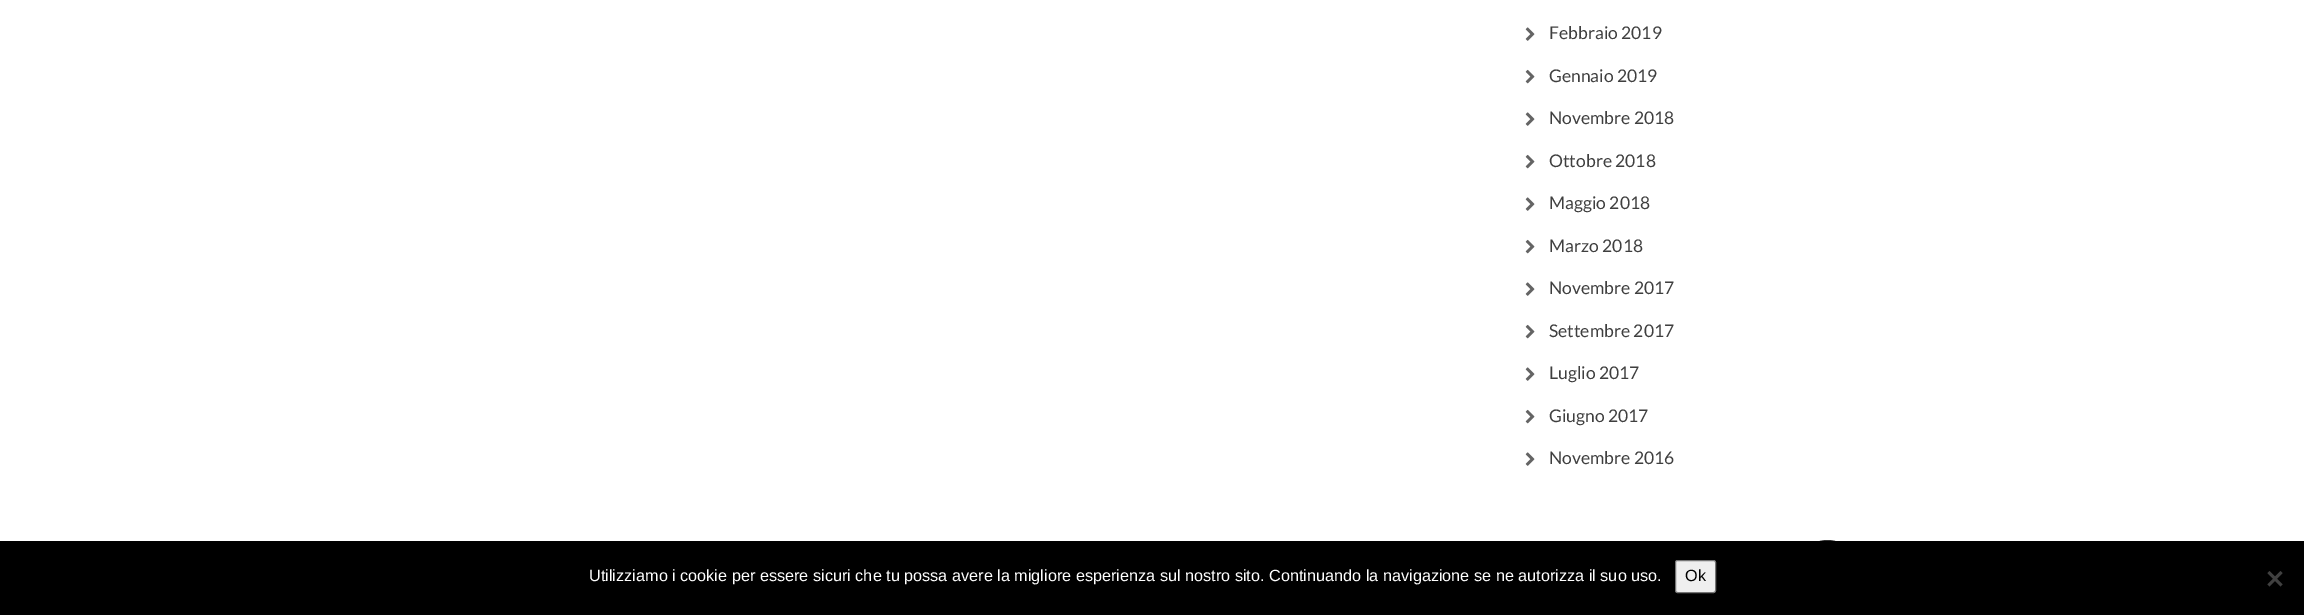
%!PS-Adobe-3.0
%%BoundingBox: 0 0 2304 615
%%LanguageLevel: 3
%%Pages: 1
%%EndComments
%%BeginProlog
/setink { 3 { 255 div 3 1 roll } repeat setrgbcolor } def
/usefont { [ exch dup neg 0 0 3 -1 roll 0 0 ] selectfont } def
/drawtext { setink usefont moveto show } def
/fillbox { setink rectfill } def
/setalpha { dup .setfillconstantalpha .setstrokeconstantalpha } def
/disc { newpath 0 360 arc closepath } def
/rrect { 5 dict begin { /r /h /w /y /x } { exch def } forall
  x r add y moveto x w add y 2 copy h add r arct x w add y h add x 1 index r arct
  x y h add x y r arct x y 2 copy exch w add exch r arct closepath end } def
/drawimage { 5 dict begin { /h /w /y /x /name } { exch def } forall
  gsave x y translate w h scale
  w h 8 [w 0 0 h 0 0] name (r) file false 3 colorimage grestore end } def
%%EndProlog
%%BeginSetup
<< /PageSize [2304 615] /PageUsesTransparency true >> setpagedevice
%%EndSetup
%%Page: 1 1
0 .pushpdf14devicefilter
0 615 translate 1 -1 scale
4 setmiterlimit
0 0 2304 615 255 255 255 fillbox
(assets/img1.rgb) 1525 27 10 14 drawimage
(Febbraio 2019) 1549 39 /Lato-Regular 17.5 63 63 63 drawtext
(assets/img2.rgb) 1525 69 10 15 drawimage
(Gennaio 2019) 1549 82 /Lato-Regular 17.5 63 63 63 drawtext
(assets/img1.rgb) 1525 112 10 14 drawimage
(Novembre 2018) 1549 124 /Lato-Regular 17.5 63 63 63 drawtext
(assets/img2.rgb) 1525 154 10 15 drawimage
(Ottobre 2018) 1549 167 /Lato-Regular 17.5 63 63 63 drawtext
(assets/img1.rgb) 1525 197 10 14 drawimage
(Maggio 2018) 1549 209 /Lato-Regular 17.5 63 63 63 drawtext
(assets/img2.rgb) 1525 239 10 15 drawimage
(Marzo 2018) 1549 252 /Lato-Regular 17.5 63 63 63 drawtext
(assets/img1.rgb) 1525 282 10 14 drawimage
(Novembre 2017) 1549 294 /Lato-Regular 17.5 63 63 63 drawtext
(assets/img2.rgb) 1525 324 10 15 drawimage
(Settembre 2017) 1549 337 /Lato-Regular 17.5 63 63 63 drawtext
(assets/img1.rgb) 1525 367 10 14 drawimage
(Luglio 2017) 1549 379 /Lato-Regular 17.5 63 63 63 drawtext
(assets/img2.rgb) 1525 409 10 15 drawimage
(Giugno 2017) 1549 422 /Lato-Regular 17.5 63 63 63 drawtext
(assets/img1.rgb) 1525 452 10 14 drawimage
(Novembre 2016) 1549 464 /Lato-Regular 17.5 63 63 63 drawtext
0.8 setalpha
0 0 0 setink
1827.5 571.5 31.5 disc fill
1 setalpha
0 541 2304 74 0 0 0 fillbox
(Utilizziamo i cookie per essere sicuri che tu possa avere la migliore esperienza sul nostro sito. Continuando la navigazione se ne autorizza il suo uso.) 589 581 /LiberationSans-Regular 16.25 255 255 255 drawtext
239 239 239 setink
1675.5 560.5 40 32 2 rrect gsave fill grestore
118 118 118 setink
stroke
(Ok) 1685 581 /LiberationSans-Regular 16.25 0 0 0 drawtext
64 64 64 setink
2280.5 571 moveto 2282.5 573 lineto 2269.5 586.5 lineto 2267.5 584.5 lineto closepath fill
2267.5 573 moveto 2269.5 571 lineto 2282.5 584.5 lineto 2280.5 586.5 lineto closepath fill
.poppdf14devicefilter showpage
%%EOF
